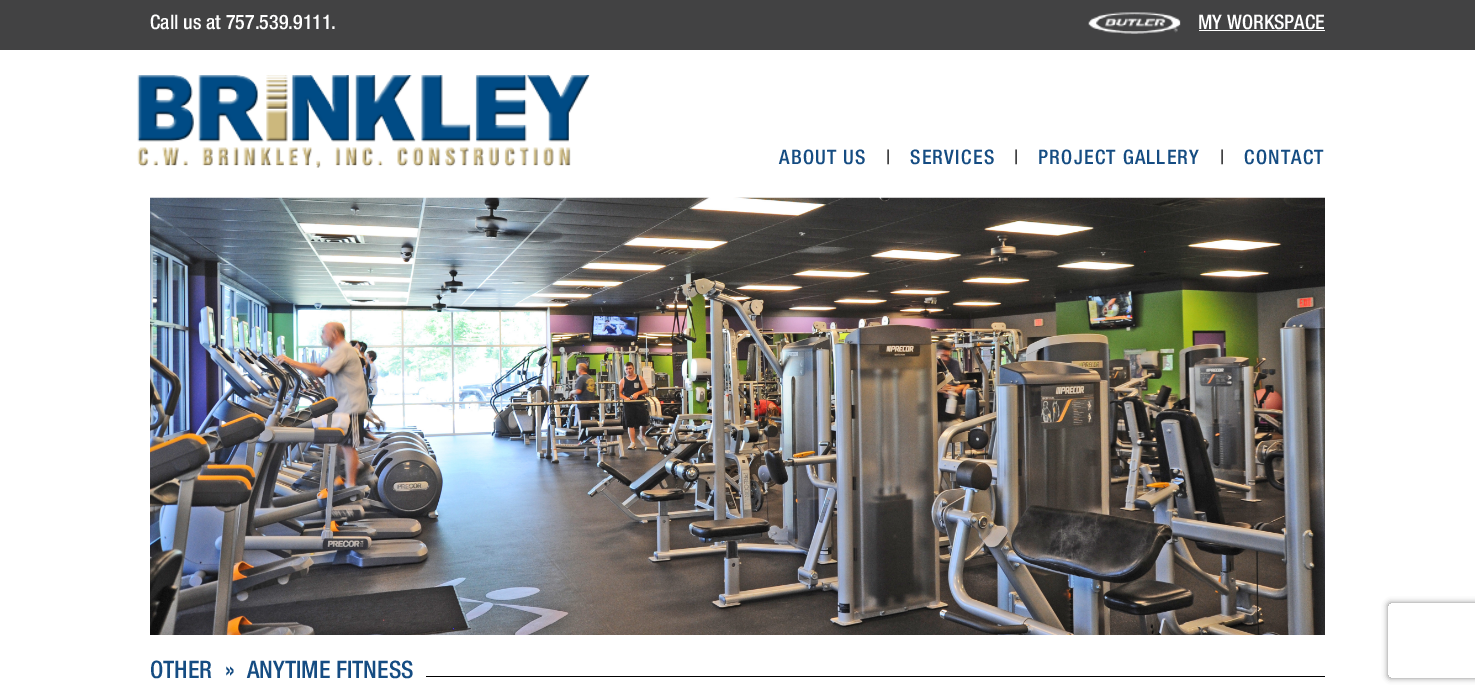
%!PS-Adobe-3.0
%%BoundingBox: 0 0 1475 694
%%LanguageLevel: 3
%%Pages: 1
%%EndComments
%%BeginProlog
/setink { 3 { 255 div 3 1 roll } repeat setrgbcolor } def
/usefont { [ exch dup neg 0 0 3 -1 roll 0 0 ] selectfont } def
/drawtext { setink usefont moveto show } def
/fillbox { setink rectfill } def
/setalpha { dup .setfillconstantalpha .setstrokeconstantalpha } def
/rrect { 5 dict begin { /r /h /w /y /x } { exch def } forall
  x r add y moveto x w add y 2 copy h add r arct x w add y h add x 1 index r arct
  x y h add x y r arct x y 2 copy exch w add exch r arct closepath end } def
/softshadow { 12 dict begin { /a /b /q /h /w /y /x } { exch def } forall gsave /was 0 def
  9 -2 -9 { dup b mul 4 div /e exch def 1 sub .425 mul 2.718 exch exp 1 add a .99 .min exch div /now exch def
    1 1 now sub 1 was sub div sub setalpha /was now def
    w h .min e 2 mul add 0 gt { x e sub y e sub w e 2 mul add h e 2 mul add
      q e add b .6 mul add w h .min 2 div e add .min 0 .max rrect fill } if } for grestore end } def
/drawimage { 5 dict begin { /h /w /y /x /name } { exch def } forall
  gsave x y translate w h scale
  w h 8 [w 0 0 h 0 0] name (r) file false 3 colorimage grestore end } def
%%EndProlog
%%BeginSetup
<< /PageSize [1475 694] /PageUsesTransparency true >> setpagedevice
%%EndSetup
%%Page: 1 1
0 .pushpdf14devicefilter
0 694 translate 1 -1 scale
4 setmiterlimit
0 0 1475 694 255 255 255 fillbox
0 0 1475 50 66 66 67 fillbox
(Call us at 757.539.9111.) 150 29 /HelveticaNeue-Medium 20 255 255 255 drawtext
(assets/img1.rgb) 1088 12 93 22 drawimage
(MY WORKSPACE) 1198 29 /HelveticaNeue-Medium 20 255 255 255 drawtext
1199 30 126 1 255 255 255 fillbox
(assets/img2.rgb) 137 75 453 93 drawimage
21 76 130 setink
779 164 moveto 1.25 0 (ABOUT US) ashow
66 66 67 setink
886 164 moveto 1.25 0 (|) ashow
21 76 130 setink
910 164 moveto 1.25 0 (SERVICES) ashow
66 66 67 setink
1014 164 moveto 1.25 0 (|) ashow
21 76 130 setink
1038 164 moveto 1.25 0 (PROJECT GALLERY) ashow
66 66 67 setink
1220 164 moveto 1.25 0 (|) ashow
21 76 130 setink
1244 164 moveto 1.25 0 (CONTACT) ashow
(assets/img3.rgb) 150 197 1175 438 drawimage
(OTHER) 150 678 /HelveticaNeue-Medium 24 21 76 130 drawtext
(») 225 678 /HelveticaNeue-Medium 24 21 76 130 drawtext
(ANYTIME FITNESS) 247 678 /HelveticaNeue-Medium 24 21 76 130 drawtext
426 676 899 1 0 0 0 fillbox
gsave
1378 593 moveto 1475 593 lineto 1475 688 lineto 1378 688 lineto closepath 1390.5 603 moveto 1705.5 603 lineto 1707 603 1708 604 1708 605.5 curveto 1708 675.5 lineto 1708 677 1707 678 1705.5 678 curveto 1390.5 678 lineto 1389 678 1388 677 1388 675.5 curveto 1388 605.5 lineto 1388 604 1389 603 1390.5 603 curveto closepath eoclip newpath
128 128 128 setink
1388 603 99 75 2.5 3 1 softshadow
grestore
.poppdf14devicefilter showpage
%%EOF
